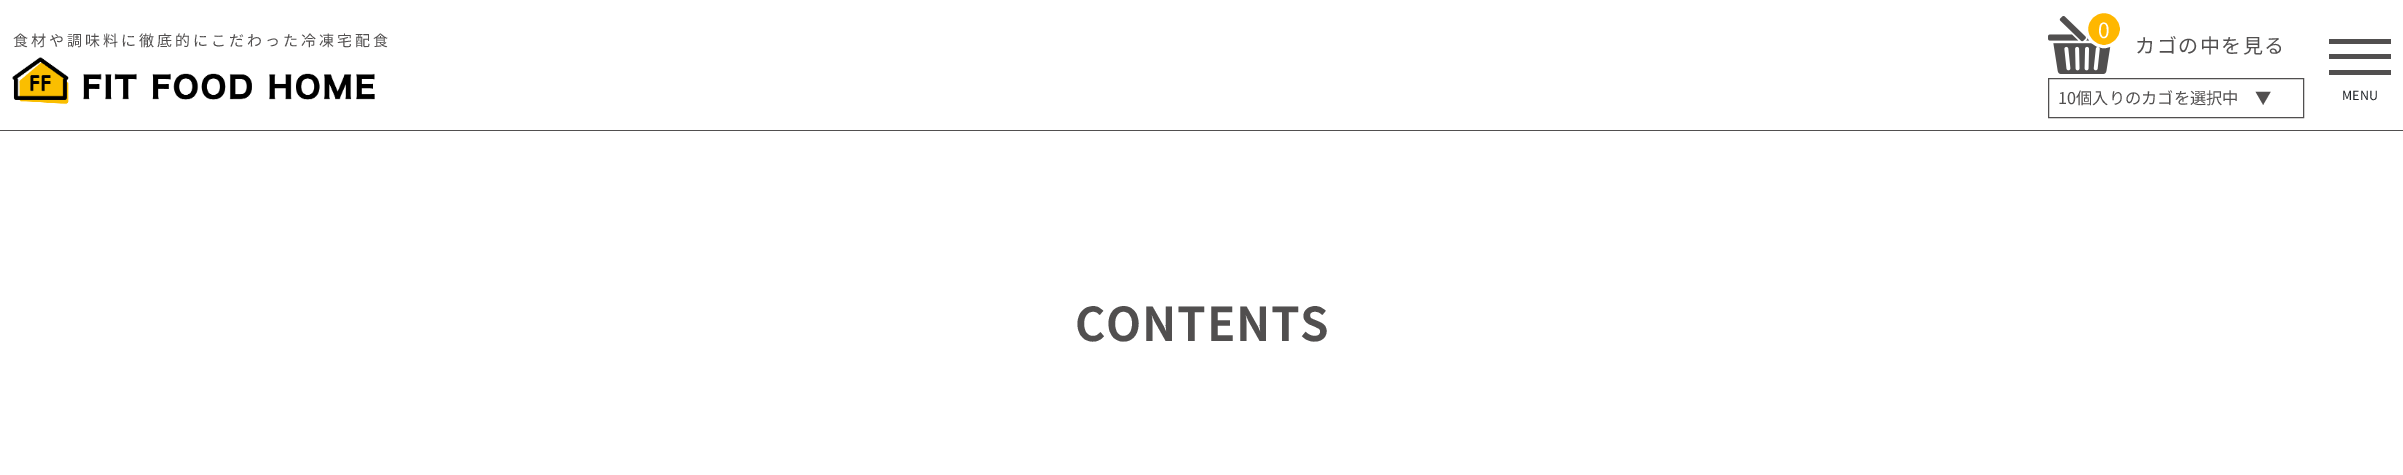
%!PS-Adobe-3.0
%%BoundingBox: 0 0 2403 475
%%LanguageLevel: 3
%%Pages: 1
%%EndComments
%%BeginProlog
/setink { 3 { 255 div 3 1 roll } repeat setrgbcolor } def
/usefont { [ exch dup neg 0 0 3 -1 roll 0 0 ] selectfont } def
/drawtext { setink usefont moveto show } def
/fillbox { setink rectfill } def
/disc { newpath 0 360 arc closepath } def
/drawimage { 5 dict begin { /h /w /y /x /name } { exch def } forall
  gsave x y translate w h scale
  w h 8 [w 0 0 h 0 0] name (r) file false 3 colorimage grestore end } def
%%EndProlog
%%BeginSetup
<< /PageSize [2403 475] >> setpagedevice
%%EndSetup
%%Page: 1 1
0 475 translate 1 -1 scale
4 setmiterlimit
0 0 2403 475 255 255 255 fillbox
0 130 2403 1 81 79 79 fillbox
/NotoSansJP-Regular 15 usefont
13 46 moveto 3 0 (食材や調味料に徹底的にこだわった冷凍宅配食) ashow
(assets/img1.rgb) 12 57 363 48 drawimage
(assets/img2.rgb) 2048 16 63 58 drawimage
255 183 0 setink
2104 29 17.5 disc gsave fill grestore
255 255 255 setink
3 setlinewidth
stroke
(0) 2098 38 /NotoSansJP-Regular 21 255 255 255 drawtext
/NotoSansJP-Regular 20 usefont
81 79 79 setink
2135 53 moveto 1.5 0 (カゴの中を見る) ashow
1 setlinewidth
2048.5 78.5 255 39 rectstroke
(10個入りのカゴを選択中　▼) 2058 104 /NotoSansJP-Regular 16.25 81 79 79 drawtext
2329 39 62 5 81 79 79 fillbox
2329 54 62 5 81 79 79 fillbox
2329 70 62 5 81 79 79 fillbox
(MENU) 2342 100 /NotoSansJP-Regular 12.5 33 37 41 drawtext
/NotoSansJP-Bold 45 usefont
81 79 79 setink
1075 341 moveto 2 0 (CONTENTS) ashow
showpage
%%EOF
